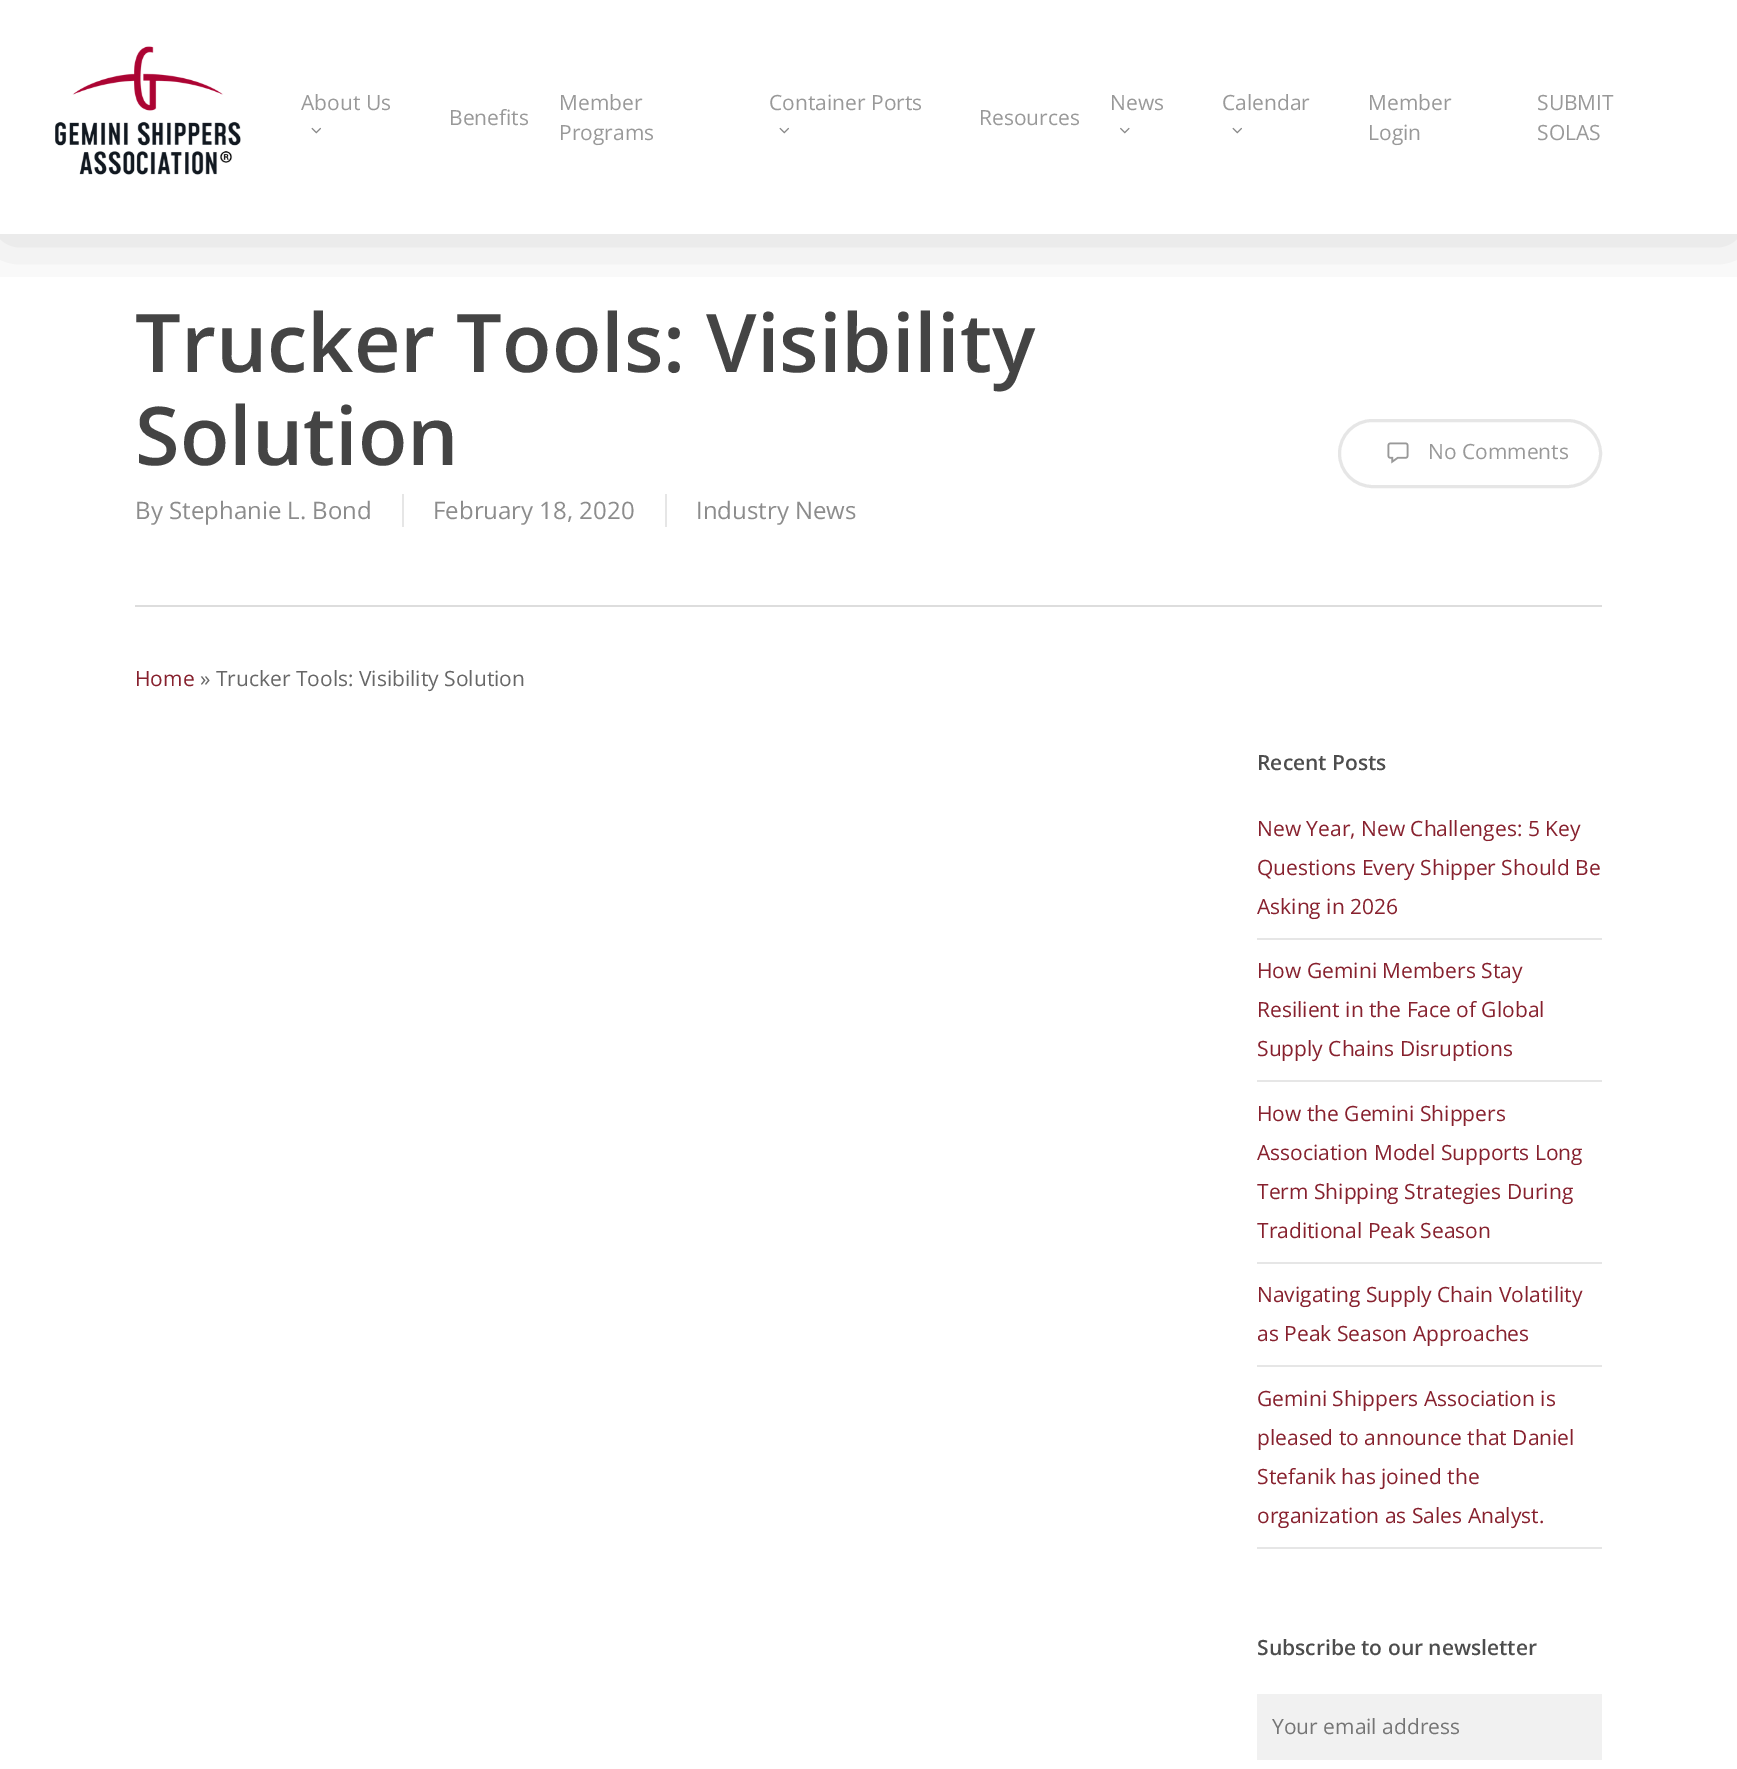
%!PS-Adobe-3.0
%%BoundingBox: 0 0 1737 1769
%%LanguageLevel: 3
%%Pages: 1
%%EndComments
%%BeginProlog
/setink { 3 { 255 div 3 1 roll } repeat setrgbcolor } def
/usefont { [ exch dup neg 0 0 3 -1 roll 0 0 ] selectfont } def
/drawtext { setink usefont moveto show } def
/fillbox { setink rectfill } def
/setalpha { dup .setfillconstantalpha .setstrokeconstantalpha } def
/rrect { 5 dict begin { /r /h /w /y /x } { exch def } forall
  x r add y moveto x w add y 2 copy h add r arct x w add y h add x 1 index r arct
  x y h add x y r arct x y 2 copy exch w add exch r arct closepath end } def
/softshadow { 12 dict begin { /a /b /q /h /w /y /x } { exch def } forall gsave /was 0 def
  9 -2 -9 { dup b mul 4 div /e exch def 1 sub .425 mul 2.718 exch exp 1 add a .99 .min exch div /now exch def
    1 1 now sub 1 was sub div sub setalpha /was now def
    w h .min e 2 mul add 0 gt { x e sub y e sub w e 2 mul add h e 2 mul add
      q e add b .6 mul add w h .min 2 div e add .min 0 .max rrect fill } if } for grestore end } def
/drawimage { 5 dict begin { /h /w /y /x /name } { exch def } forall
  gsave x y translate w h scale
  w h 8 [w 0 0 h 0 0] name (r) file false 3 colorimage grestore end } def
%%EndProlog
%%BeginSetup
<< /PageSize [1737 1769] /PageUsesTransparency true >> setpagedevice
%%EndSetup
%%Page: 1 1
0 .pushpdf14devicefilter
0 1769 translate 1 -1 scale
4 setmiterlimit
0 0 1737 1769 255 255 255 fillbox
gsave
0 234 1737 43 rectclip
0 0 0 setink
0 5 1737 234 0 34 0.15 softshadow
grestore
(assets/img1.rgb) 55 46 186 129 drawimage
(About Us) 301 110 /OpenSans-Regular 21 153 153 153 drawtext
(assets/img2.rgb) 311 127 10 7 drawimage
(Member) 559 110 /OpenSans-Regular 21 153 153 153 drawtext
(Programs) 559 140 /OpenSans-Regular 21 153 153 153 drawtext
(Container Ports) 769 110 /OpenSans-Regular 21 153 153 153 drawtext
(assets/img2.rgb) 779 127 10 7 drawimage
(News) 1110 110 /OpenSans-Regular 21 153 153 153 drawtext
(assets/img3.rgb) 1120 127 10 7 drawimage
(Calendar) 1222 110 /OpenSans-Regular 21 153 153 153 drawtext
(assets/img2.rgb) 1232 127 10 7 drawimage
(Member) 1368 110 /OpenSans-Regular 21 153 153 153 drawtext
(Login) 1368 140 /OpenSans-Regular 21 153 153 153 drawtext
(SUBMIT) 1537 110 /OpenSans-Regular 21 153 153 153 drawtext
(SOLAS) 1537 140 /OpenSans-Regular 21 153 153 153 drawtext
(Benefits) 449 125 /OpenSans-Regular 21 153 153 153 drawtext
(Resources) 979 125 /OpenSans-Regular 21 153 153 153 drawtext
135 605 1467 2 221 221 221 fillbox
(Trucker Tools: Visibility) 135 372 /OpenSans-SemiBold 81 68 68 68 drawtext
(Solution) 135 465 /OpenSans-SemiBold 81 68 68 68 drawtext
230 230 230 setink
3 setlinewidth
1339.5 420.5 261 66 33 rrect stroke
(assets/img4.rgb) 1387 442 22 22 drawimage
(No Comments) 1428 459 /OpenSans-Regular 21 153 153 153 drawtext
(By) 135 519 /OpenSans-Regular 24 140 140 140 drawtext
(Stephanie L. Bond) 169 519 /OpenSans-Regular 24 140 140 140 drawtext
(February 18, 2020) 433 519 /OpenSans-Regular 24 140 140 140 drawtext
402 494 2 33 230 230 230 fillbox
(Industry News) 696 519 /OpenSans-Regular 24 140 140 140 drawtext
665 494 2 33 230 230 230 fillbox
(Home) 135 686 /OpenSans-Regular 21 135 33 46 drawtext
(» Trucker Tools: Visibility Solution) 200 686 /OpenSans-Regular 21 103 103 103 drawtext
(Recent Posts) 1257 770 /OpenSans-SemiBold 21 77 77 77 drawtext
1257 938 345 2 230 230 230 fillbox
(New Year, New Challenges: 5 Key) 1257 836 /OpenSans-Regular 21 135 33 46 drawtext
(Questions Every Shipper Should Be) 1257 875 /OpenSans-Regular 21 135 33 46 drawtext
(Asking in 2026) 1257 914 /OpenSans-Regular 21 135 33 46 drawtext
1257 1080 345 2 230 230 230 fillbox
(How Gemini Members Stay) 1257 978 /OpenSans-Regular 21 135 33 46 drawtext
(Resilient in the Face of Global) 1257 1017 /OpenSans-Regular 21 135 33 46 drawtext
(Supply Chains Disruptions) 1257 1056 /OpenSans-Regular 21 135 33 46 drawtext
1257 1262 345 2 230 230 230 fillbox
(How the Gemini Shippers) 1257 1121 /OpenSans-Regular 21 135 33 46 drawtext
(Association Model Supports Long) 1257 1160 /OpenSans-Regular 21 135 33 46 drawtext
(Term Shipping Strategies During) 1257 1199 /OpenSans-Regular 21 135 33 46 drawtext
(Traditional Peak Season) 1257 1238 /OpenSans-Regular 21 135 33 46 drawtext
1257 1365 345 2 230 230 230 fillbox
(Navigating Supply Chain Volatility) 1257 1302 /OpenSans-Regular 21 135 33 46 drawtext
(as Peak Season Approaches) 1257 1341 /OpenSans-Regular 21 135 33 46 drawtext
1257 1547 345 2 230 230 230 fillbox
(Gemini Shippers Association is) 1257 1406 /OpenSans-Regular 21 135 33 46 drawtext
(pleased to announce that Daniel) 1257 1445 /OpenSans-Regular 21 135 33 46 drawtext
(Stefanik has joined the) 1257 1484 /OpenSans-Regular 21 135 33 46 drawtext
(organization as Sales Analyst.) 1257 1523 /OpenSans-Regular 21 135 33 46 drawtext
(Subscribe to our newsletter) 1257 1655 /OpenSans-SemiBold 21 77 77 77 drawtext
1257 1694 345 66 241 241 241 fillbox
(Your email address) 1272 1734 /OpenSans-Regular 21 117 117 117 drawtext
.poppdf14devicefilter showpage
%%EOF
